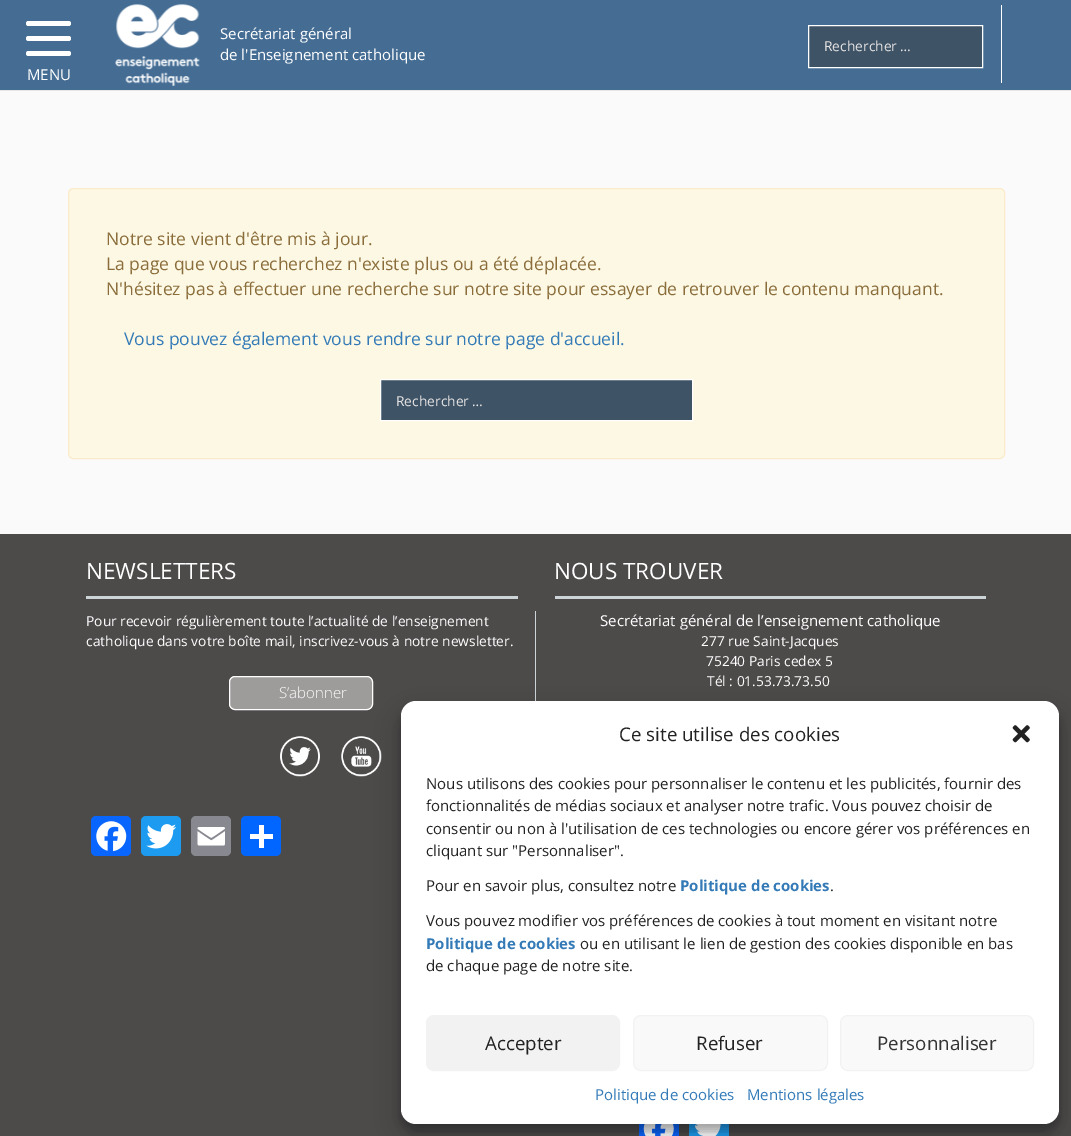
%!PS-Adobe-3.0
%%BoundingBox: 0 0 1071 1136
%%LanguageLevel: 3
%%Pages: 1
%%EndComments
%%BeginProlog
/setink { 3 { 255 div 3 1 roll } repeat setrgbcolor } def
/usefont { [ exch dup neg 0 0 3 -1 roll 0 0 ] selectfont } def
/drawtext { setink usefont moveto show } def
/fillbox { setink rectfill } def
/setalpha { dup .setfillconstantalpha .setstrokeconstantalpha } def
/rrect { 5 dict begin { /r /h /w /y /x } { exch def } forall
  x r add y moveto x w add y 2 copy h add r arct x w add y h add x 1 index r arct
  x y h add x y r arct x y 2 copy exch w add exch r arct closepath end } def
/softshadow { 12 dict begin { /a /b /q /h /w /y /x } { exch def } forall gsave /was 0 def
  9 -2 -9 { dup b mul 4 div /e exch def 1 sub .425 mul 2.718 exch exp 1 add a .99 .min exch div /now exch def
    1 1 now sub 1 was sub div sub setalpha /was now def
    w h .min e 2 mul add 0 gt { x e sub y e sub w e 2 mul add h e 2 mul add
      q e add b .6 mul add w h .min 2 div e add .min 0 .max rrect fill } if } for grestore end } def
/drawimage { 5 dict begin { /h /w /y /x /name } { exch def } forall
  gsave x y translate w h scale
  w h 8 [w 0 0 h 0 0] name (r) file false 3 colorimage grestore end } def
%%EndProlog
%%BeginSetup
<< /PageSize [1071 1136] /PageUsesTransparency true >> setpagedevice
%%EndSetup
%%Page: 1 1
0 .pushpdf14devicefilter
0 1136 translate 1 -1 scale
4 setmiterlimit
0 0 1071 1136 250 250 250 fillbox
0 0 1071 90 69 109 148 fillbox
0 90 1071 1 231 231 231 fillbox
(assets/img1.rgb) 115 4 85 82 drawimage
(Secrétariat général) 220 39 /OpenSans-Regular 15 255 255 255 drawtext
(de l'Enseignement catholique) 220 60 /OpenSans-Regular 15 255 255 255 drawtext
26 21 45 5 2.5 rrect fill
26 36 45 5 2.5 rrect fill
26 51 45 5 2.5 rrect fill
(MENU) 27 80 /OpenSans-Regular 15 255 255 255 drawtext
809 26 173 41 63 83 102 fillbox
809 26 172 1 58 77 94 fillbox
255 255 255 setink
808.5 25.5 174 42 rectstroke
(Rechercher …) 824 51 /OpenSans-Regular 13.75 230 228 228 drawtext
1001 5 1 78 255 255 255 fillbox
252 248 227 setink
68.5 188.5 936 270 4.5 rrect gsave fill grestore
250 235 204 setink
stroke
(Notre site vient d'être mis à jour.) 106 245 /OpenSans-Regular 17.5 138 109 59 drawtext
(La page que vous recherchez n'existe plus ou a été déplacée.) 106 270 /OpenSans-Regular 17.5 138 109 59 drawtext
(N'hésitez pas à effectuer une recherche sur notre site pour essayer de retrouver le contenu manquant.) 106 295 /OpenSans-Regular 17.5 138 109 59 drawtext
(Vous pouvez également vous rendre sur notre page d'accueil.) 124 345 /OpenSans-Regular 17.5 51 122 183 drawtext
381 380 311 40 63 83 102 fillbox
381 380 310 1 58 77 94 fillbox
255 255 255 setink
380.5 379.5 312 41 rectstroke
(Rechercher …) 396 406 /OpenSans-Regular 13.75 230 228 228 drawtext
0 534 1071 602 77 74 74 fillbox
86 596 432 3 204 212 216 fillbox
(NEWSLETTERS) 86 579 /OpenSans-Regular 22.5 255 255 255 drawtext
535 611 1 90 204 212 216 fillbox
(Pour recevoir régulièrement toute l’actualité de l’enseignement) 86 626 /OpenSans-Regular 13.75 255 255 255 drawtext
(catholique dans votre boîte mail, inscrivez-vous à notre newsletter.) 86 646 /OpenSans-Regular 13.75 255 255 255 drawtext
158 155 155 setink
229.5 676.5 143 33 5.5 rrect gsave fill grestore
255 255 255 setink
stroke
(S’abonner) 279 698 /OpenSans-Light 15 255 255 255 drawtext
(assets/img2.rgb) 280 736 40 41 drawimage
(assets/img3.rgb) 341 736 41 41 drawimage
8 102 255 setink
91 816 40 40 5 rrect fill
(assets/img4.rgb) 96 821 31 31 drawimage
29 155 240 setink
141 816 40 40 5 rrect fill
(assets/img5.rgb) 146 824 31 25 drawimage
136 137 144 setink
191 816 40 40 5 rrect fill
(assets/img6.rgb) 197 827 28 19 drawimage
1 102 255 setink
241 816 40 40 5 rrect fill
259 825 5 23 255 255 255 fillbox
250 834 23 5 255 255 255 fillbox
555 596 431 3 204 212 216 fillbox
(NOUS TROUVER) 554 579 /OpenSans-Regular 22.5 255 255 255 drawtext
(Secrétariat général de l’enseignement catholique) 600 626 /OpenSans-Regular 15 255 255 255 drawtext
(277 rue Saint-Jacques) 701 646 /OpenSans-Regular 13.75 255 255 255 drawtext
(75240 Paris cedex 5) 706 666 /OpenSans-Regular 13.75 255 255 255 drawtext
(Tél : 01.53.73.73.50) 707 686 /OpenSans-Regular 13.75 255 255 255 drawtext
639 1124 40 12 8 102 255 fillbox
(assets/img7.rgb) 643 1124 31 12 drawimage
689 1124 40 12 29 155 240 fillbox
(assets/img8.rgb) 695 1124 26 12 drawimage
0 0 0 setink
401 709 658 422 15 4 0.23 softshadow
401 714 658 422 15 12.5 0.19 softshadow
255 255 255 setink
401 701 658 423 15 rrect fill
(Ce site utilise des cookies) 619 741 /OpenSans-Regular 18.75 34 34 34 drawtext
(assets/img9.rgb) 1012 725 18 18 drawimage
(Nous utilisons des cookies pour personnaliser le contenu et les publicités, fournir des) 426 789 /OpenSans-Regular 15 34 34 34 drawtext
(fonctionnalités de médias sociaux et analyser notre trafic. Vous pouvez choisir de) 426 811 /OpenSans-Regular 15 34 34 34 drawtext
(consentir ou non à l'utilisation de ces technologies ou encore gérer vos préférences en) 426 834 /OpenSans-Regular 15 34 34 34 drawtext
(cliquant sur "Personnaliser".) 426 856 /OpenSans-Regular 15 34 34 34 drawtext
(Pour en savoir plus, consultez notre) 426 891 /OpenSans-Regular 15 34 34 34 drawtext
(Politique de cookies) 680 891 /OpenSans-Bold 15 51 122 183 drawtext
(.) 830 891 /OpenSans-Regular 15 34 34 34 drawtext
(Vous pouvez modifier vos préférences de cookies à tout moment en visitant notre) 426 926 /OpenSans-Regular 15 34 34 34 drawtext
(Politique de cookies) 426 949 /OpenSans-Bold 15 51 122 183 drawtext
(ou en utilisant le lien de gestion des cookies disponible en bas) 580 949 /OpenSans-Regular 15 34 34 34 drawtext
(de chaque page de notre site.) 426 971 /OpenSans-Regular 15 34 34 34 drawtext
242 242 242 setink
426.5 1015.5 193 55 7.5 rrect gsave fill grestore
stroke
(Accepter) 485 1050 /OpenSans-Regular 18.75 34 34 34 drawtext
249 249 249 setink
633.5 1015.5 194 55 7.5 rrect gsave fill grestore
242 242 242 setink
stroke
(Refuser) 696 1050 /OpenSans-Regular 18.75 34 34 34 drawtext
249 249 249 setink
840.5 1015.5 193 55 7.5 rrect gsave fill grestore
242 242 242 setink
stroke
(Personnaliser) 877 1050 /OpenSans-Regular 18.75 51 51 51 drawtext
(Politique de cookies) 595 1100 /OpenSans-Regular 15 51 122 183 drawtext
(Mentions légales) 747 1100 /OpenSans-Regular 15 51 122 183 drawtext
.poppdf14devicefilter showpage
%%EOF
